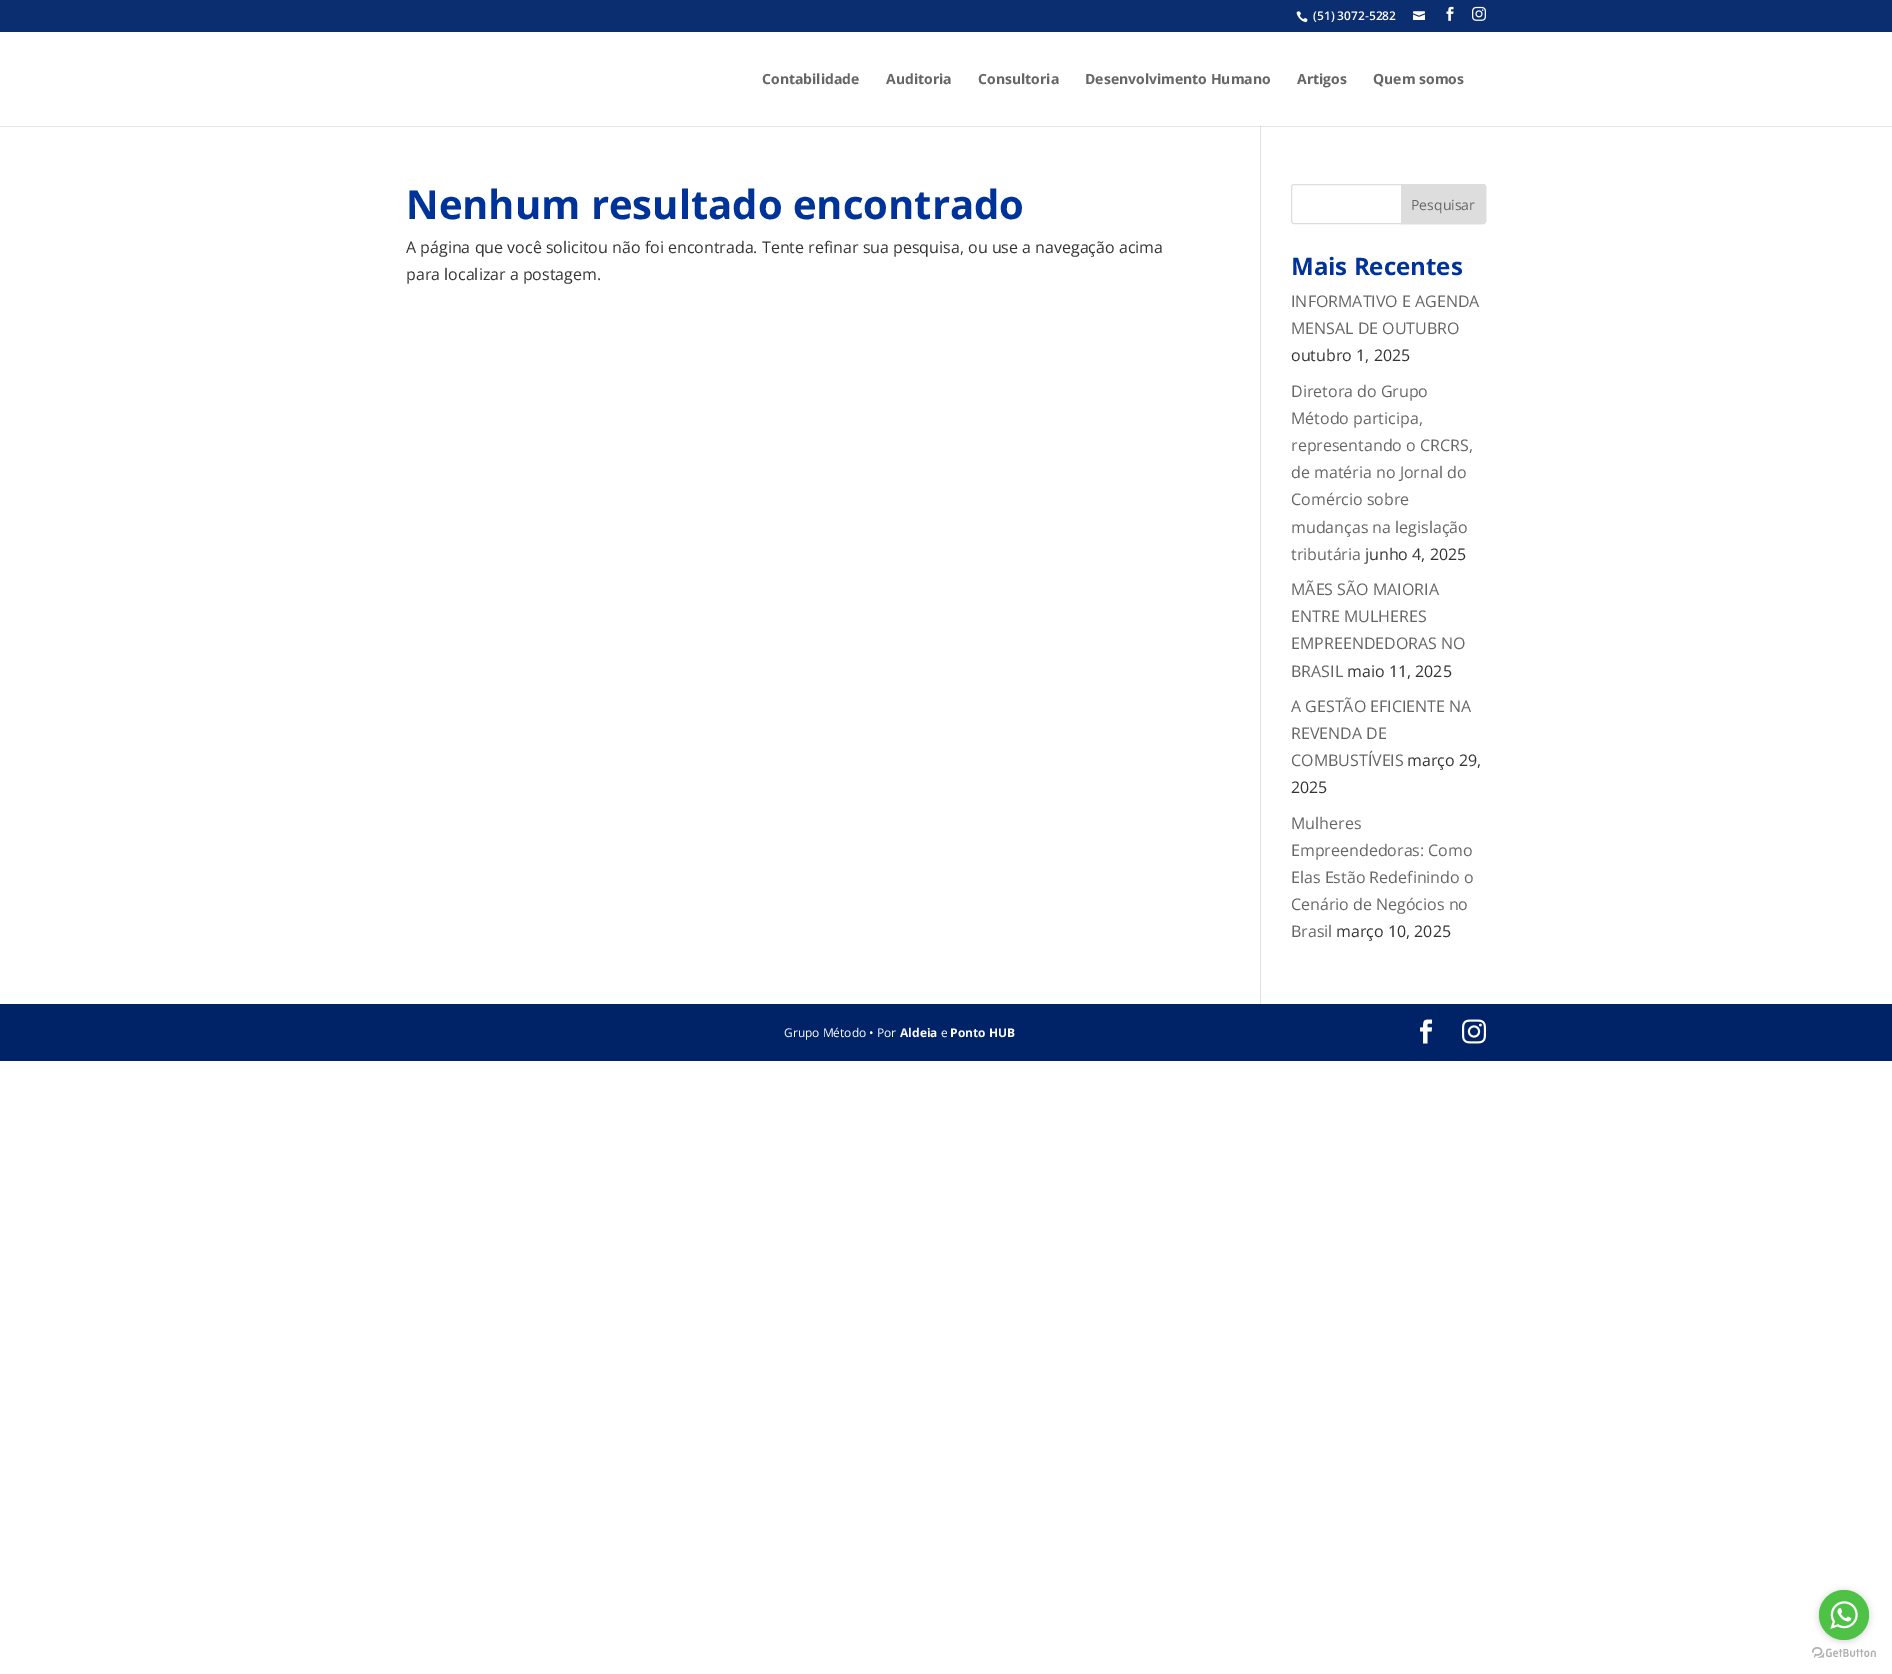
%!PS-Adobe-3.0
%%BoundingBox: 0 0 1892 1674
%%LanguageLevel: 3
%%Pages: 1
%%EndComments
%%BeginProlog
/setink { 3 { 255 div 3 1 roll } repeat setrgbcolor } def
/usefont { [ exch dup neg 0 0 3 -1 roll 0 0 ] selectfont } def
/drawtext { setink usefont moveto show } def
/fillbox { setink rectfill } def
/setalpha { dup .setfillconstantalpha .setstrokeconstantalpha } def
/disc { newpath 0 360 arc closepath } def
/rrect { 5 dict begin { /r /h /w /y /x } { exch def } forall
  x r add y moveto x w add y 2 copy h add r arct x w add y h add x 1 index r arct
  x y h add x y r arct x y 2 copy exch w add exch r arct closepath end } def
/softshadow { 12 dict begin { /a /b /q /h /w /y /x } { exch def } forall gsave /was 0 def
  9 -2 -9 { dup b mul 4 div /e exch def 1 sub .425 mul 2.718 exch exp 1 add a .99 .min exch div /now exch def
    1 1 now sub 1 was sub div sub setalpha /was now def
    w h .min e 2 mul add 0 gt { x e sub y e sub w e 2 mul add h e 2 mul add
      q e add b .6 mul add w h .min 2 div e add .min 0 .max rrect fill } if } for grestore end } def
/drawimage { 5 dict begin { /h /w /y /x /name } { exch def } forall
  gsave x y translate w h scale
  w h 8 [w 0 0 h 0 0] name (r) file false 3 colorimage grestore end } def
%%EndProlog
%%BeginSetup
<< /PageSize [1892 1674] /PageUsesTransparency true >> setpagedevice
%%EndSetup
%%Page: 1 1
0 .pushpdf14devicefilter
0 1674 translate 1 -1 scale
4 setmiterlimit
0 0 1892 1674 255 255 255 fillbox
0 126 1892 1 230 230 230 fillbox
0 0 1892 32 10 46 112 fillbox
(assets/img1.rgb) 1296 11 12 12 drawimage
(\(51\) 3072-5282) 1313 20 /OpenSans-SemiBold 12 255 255 255 drawtext
(assets/img2.rgb) 1413 11 12 9 drawimage
(assets/img3.rgb) 1446 6 8 15 drawimage
(assets/img4.rgb) 1472 6 14 15 drawimage
(Contabilidade) 762 84 /OpenSans-Bold 14 102 102 102 drawtext
(Auditoria) 886 84 /OpenSans-Bold 14 102 102 102 drawtext
(Consultoria) 978 84 /OpenSans-Bold 14 102 102 102 drawtext
(Desenvolvimento Humano) 1085 84 /OpenSans-Bold 14 102 102 102 drawtext
(Artigos) 1297 84 /OpenSans-Bold 14 102 102 102 drawtext
(Quem somos) 1373 84 /OpenSans-Bold 14 102 102 102 drawtext
1260 126 1 878 226 226 226 fillbox
1260 126 1 1 203 203 203 fillbox
(Nenhum resultado encontrado) 406 219 /OpenSans-Bold 40 0 51 153 drawtext
(A página que você solicitou não foi encontrada. Tente refinar sua pesquisa, ou use a navegação acima) 406 253 /OpenSans-Regular 16 51 51 51 drawtext
(para localizar a postagem.) 406 280 /OpenSans-Regular 16 51 51 51 drawtext
221 221 221 setink
1291.5 184.5 194 39 2.5 rrect stroke
1401.5 184.5 moveto 1483 184.5 lineto 1484.5 184.5 1485.5 185.5 1485.5 187 curveto 1485.5 221 lineto 1485.5 222.5 1484.5 223.5 1483 223.5 curveto 1401.5 223.5 lineto closepath gsave fill grestore
stroke
(Pesquisar) 1411 210 /OpenSans-Regular 14 102 102 102 drawtext
(Mais Recentes) 1291 275 /OpenSans-Bold 24 0 51 153 drawtext
(INFORMATIVO E AGENDA) 1291 307 /OpenSans-Regular 16 102 102 102 drawtext
(MENSAL DE OUTUBRO) 1291 334 /OpenSans-Regular 16 102 102 102 drawtext
(outubro 1, 2025) 1291 361 /OpenSans-Regular 16 51 51 51 drawtext
(Diretora do Grupo) 1291 397 /OpenSans-Regular 16 102 102 102 drawtext
(Método participa,) 1291 424 /OpenSans-Regular 16 102 102 102 drawtext
(representando o CRCRS,) 1291 451 /OpenSans-Regular 16 102 102 102 drawtext
(de matéria no Jornal do) 1291 478 /OpenSans-Regular 16 102 102 102 drawtext
(Comércio sobre) 1291 505 /OpenSans-Regular 16 102 102 102 drawtext
(mudanças na legislação) 1291 533 /OpenSans-Regular 16 102 102 102 drawtext
(tributária) 1291 560 /OpenSans-Regular 16 102 102 102 drawtext
(junho 4, 2025) 1365 560 /OpenSans-Regular 16 51 51 51 drawtext
(MÃES SÃO MAIORIA) 1291 595 /OpenSans-Regular 16 102 102 102 drawtext
(ENTRE MULHERES) 1291 622 /OpenSans-Regular 16 102 102 102 drawtext
(EMPREENDEDORAS NO) 1291 649 /OpenSans-Regular 16 102 102 102 drawtext
(BRASIL) 1291 677 /OpenSans-Regular 16 102 102 102 drawtext
(maio 11, 2025) 1347 677 /OpenSans-Regular 16 51 51 51 drawtext
(A GESTÃO EFICIENTE NA) 1291 712 /OpenSans-Regular 16 102 102 102 drawtext
(REVENDA DE) 1291 739 /OpenSans-Regular 16 102 102 102 drawtext
(COMBUSTÍVEIS) 1291 766 /OpenSans-Regular 16 102 102 102 drawtext
(março 29,) 1407 766 /OpenSans-Regular 16 51 51 51 drawtext
(2025) 1291 793 /OpenSans-Regular 16 51 51 51 drawtext
(Mulheres) 1291 829 /OpenSans-Regular 16 102 102 102 drawtext
(Empreendedoras: Como) 1291 856 /OpenSans-Regular 16 102 102 102 drawtext
(Elas Estão Redefinindo o) 1291 883 /OpenSans-Regular 16 102 102 102 drawtext
(Cenário de Negócios no) 1291 910 /OpenSans-Regular 16 102 102 102 drawtext
(Brasil) 1291 937 /OpenSans-Regular 16 102 102 102 drawtext
(março 10, 2025) 1336 937 /OpenSans-Regular 16 51 51 51 drawtext
0 1004 1892 57 0 35 104 fillbox
(Grupo Método • Por) 784 1037 /OpenSans-Regular 12 255 255 255 drawtext
(Aldeia) 900 1037 /OpenSans-Bold 12 255 255 255 drawtext
(e) 941 1037 /OpenSans-Regular 12 255 255 255 drawtext
(Ponto HUB) 950 1037 /OpenSans-Bold 12 255 255 255 drawtext
(assets/img5.rgb) 1420 1019 13 25 drawimage
(assets/img6.rgb) 1462 1019 24 25 drawimage
(assets/img8.rgb) 1812 1647 64 11 drawimage
136 136 136 setink
1819 1591 50 50 25 3.5 0.4 softshadow
77 194 71 setink
1844 1615 25 disc fill
(assets/img7.rgb) 1830 1601 28 28 drawimage
.poppdf14devicefilter showpage
%%EOF
